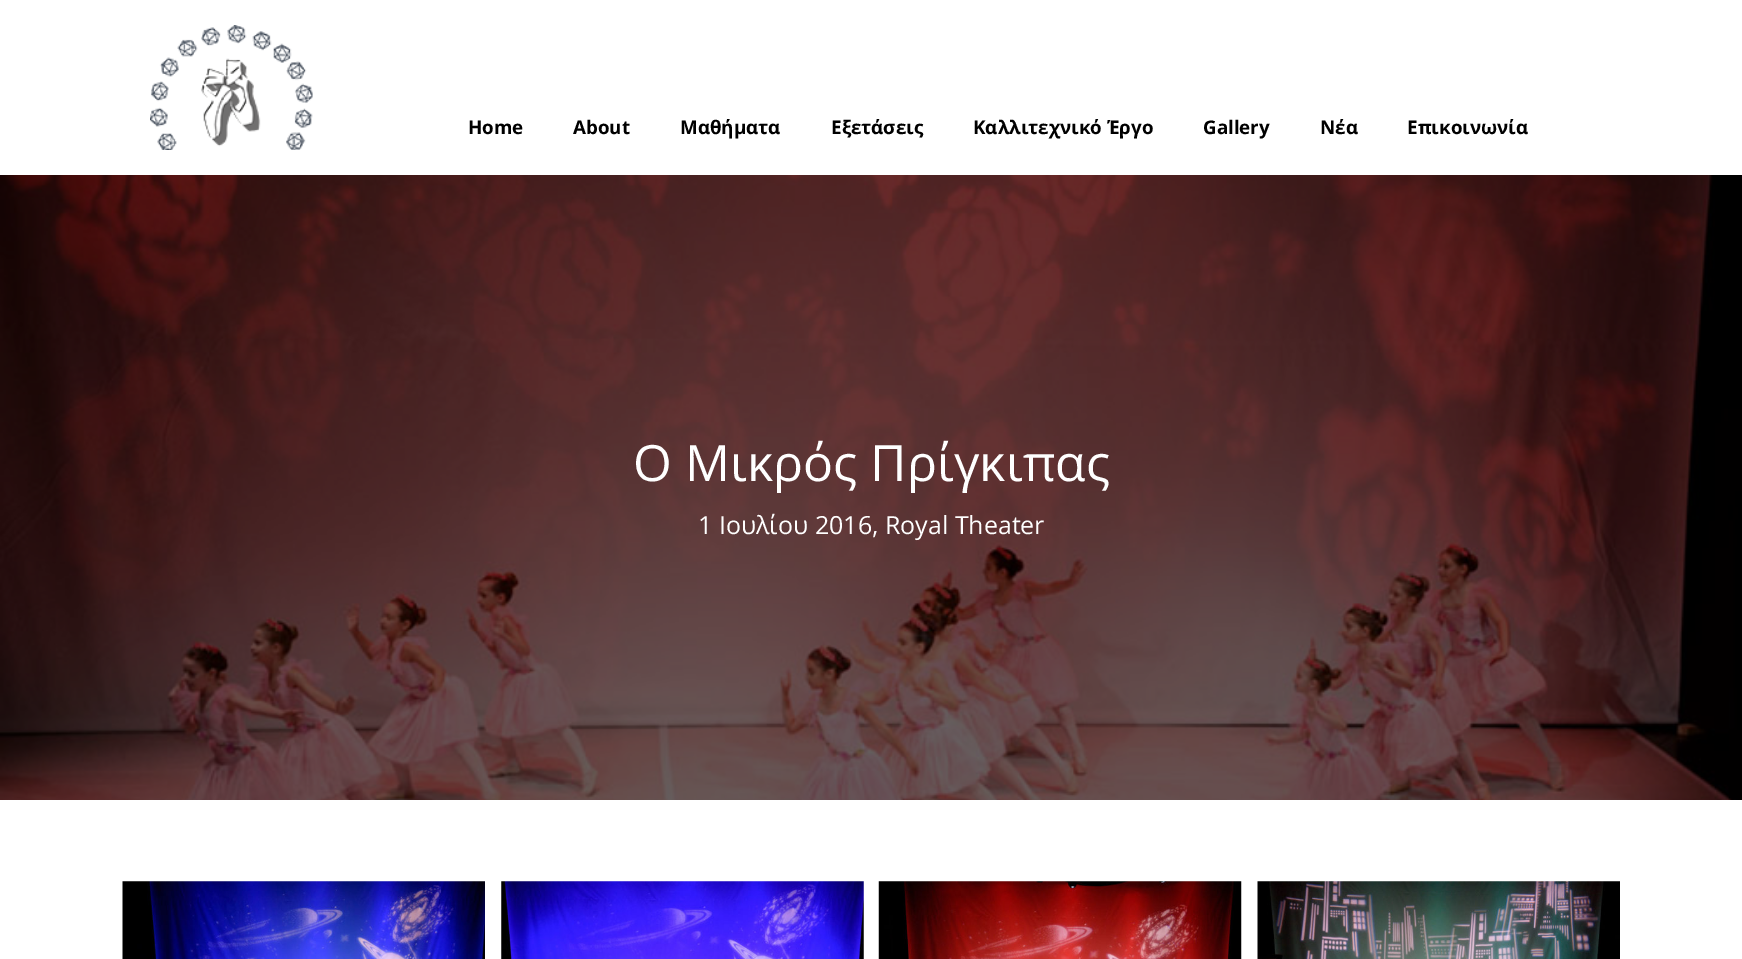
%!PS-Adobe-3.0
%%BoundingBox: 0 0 1742 959
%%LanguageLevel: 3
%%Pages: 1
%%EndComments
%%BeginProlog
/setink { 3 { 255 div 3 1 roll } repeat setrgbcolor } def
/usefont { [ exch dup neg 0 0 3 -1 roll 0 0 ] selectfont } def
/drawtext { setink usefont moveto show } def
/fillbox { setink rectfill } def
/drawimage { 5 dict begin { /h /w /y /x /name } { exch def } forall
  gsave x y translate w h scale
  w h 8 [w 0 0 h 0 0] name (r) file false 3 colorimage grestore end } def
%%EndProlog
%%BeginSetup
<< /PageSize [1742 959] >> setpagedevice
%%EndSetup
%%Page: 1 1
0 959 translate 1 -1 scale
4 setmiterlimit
0 0 1742 959 255 255 255 fillbox
(assets/img1.rgb) 150 25 163 125 drawimage
(Home) 468 134 /OpenSans-Bold 18.75 0 0 0 drawtext
(About) 573 134 /OpenSans-Bold 18.75 0 0 0 drawtext
(Μαθήματα) 680 134 /OpenSans-Bold 18.75 0 0 0 drawtext
(Εξετάσεις) 831 134 /OpenSans-Bold 18.75 0 0 0 drawtext
(Καλλιτεχνικό Έργο) 973 134 /OpenSans-Bold 18.75 0 0 0 drawtext
(Gallery) 1203 134 /OpenSans-Bold 18.75 0 0 0 drawtext
(Nέα) 1320 134 /OpenSans-Bold 18.75 0 0 0 drawtext
(Επικοινωνία) 1407 134 /OpenSans-Bold 18.75 0 0 0 drawtext
(assets/img2.rgb) 0 175 1742 625 drawimage
(Ο Μικρός Πρίγκιπας) 633 481 /OpenSans-Regular 50 255 255 255 drawtext
(1 Ιουλίου 2016, Royal Theater) 698 534 /OpenSans-Regular 25 255 255 255 drawtext
(assets/img3.rgb) 122 881 363 78 drawimage
(assets/img4.rgb) 501 881 363 78 drawimage
(assets/img5.rgb) 878 881 364 78 drawimage
(assets/img6.rgb) 1257 881 363 78 drawimage
showpage
%%EOF
